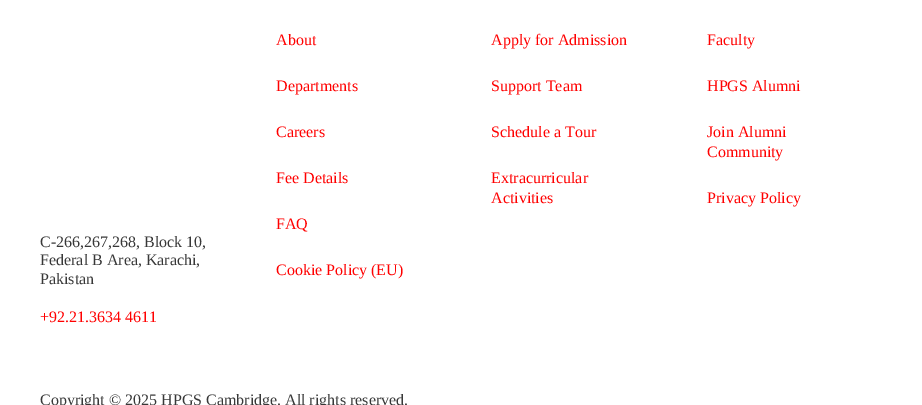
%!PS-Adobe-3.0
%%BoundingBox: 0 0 922 405
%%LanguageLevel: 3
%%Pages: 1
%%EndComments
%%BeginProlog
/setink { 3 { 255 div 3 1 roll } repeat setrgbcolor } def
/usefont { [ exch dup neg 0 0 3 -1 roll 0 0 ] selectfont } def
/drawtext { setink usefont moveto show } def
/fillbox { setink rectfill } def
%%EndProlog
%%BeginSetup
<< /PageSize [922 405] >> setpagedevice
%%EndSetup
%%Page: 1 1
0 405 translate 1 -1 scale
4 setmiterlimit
0 0 922 405 255 255 255 fillbox
(About) 276 45 /LiberationSerif-Regular 16 255 0 0 drawtext
(Departments) 276 91 /LiberationSerif-Regular 16 255 0 0 drawtext
(Careers) 276 137 /LiberationSerif-Regular 16 255 0 0 drawtext
(Fee Details) 276 183 /LiberationSerif-Regular 16 255 0 0 drawtext
(FAQ) 276 229 /LiberationSerif-Regular 16 255 0 0 drawtext
(Cookie Policy \(EU\)) 276 275 /LiberationSerif-Regular 16 255 0 0 drawtext
(Apply for Admission) 491 45 /LiberationSerif-Regular 16 255 0 0 drawtext
(Support Team) 491 91 /LiberationSerif-Regular 16 255 0 0 drawtext
(Schedule a Tour) 491 137 /LiberationSerif-Regular 16 255 0 0 drawtext
(Extracurricular) 491 183 /LiberationSerif-Regular 16 255 0 0 drawtext
(Activities) 491 203 /LiberationSerif-Regular 16 255 0 0 drawtext
(Faculty) 707 45 /LiberationSerif-Regular 16 255 0 0 drawtext
(HPGS Alumni) 707 91 /LiberationSerif-Regular 16 255 0 0 drawtext
(Join Alumni) 707 137 /LiberationSerif-Regular 16 255 0 0 drawtext
(Community) 707 157 /LiberationSerif-Regular 16 255 0 0 drawtext
(Privacy Policy) 707 203 /LiberationSerif-Regular 16 255 0 0 drawtext
(C-266,267,268, Block 10,) 40 247 /LiberationSerif-Regular 16 56 56 56 drawtext
(Federal B Area, Karachi,) 40 265 /LiberationSerif-Regular 16 56 56 56 drawtext
(Pakistan) 40 284 /LiberationSerif-Regular 16 56 56 56 drawtext
(+92.21.3634 4611) 40 322 /LiberationSerif-Regular 16 255 0 0 drawtext
(Copyright © 2025 HPGS Cambridge. All rights reserved.) 40 405 /LiberationSerif-Regular 16 56 56 56 drawtext
showpage
%%EOF
